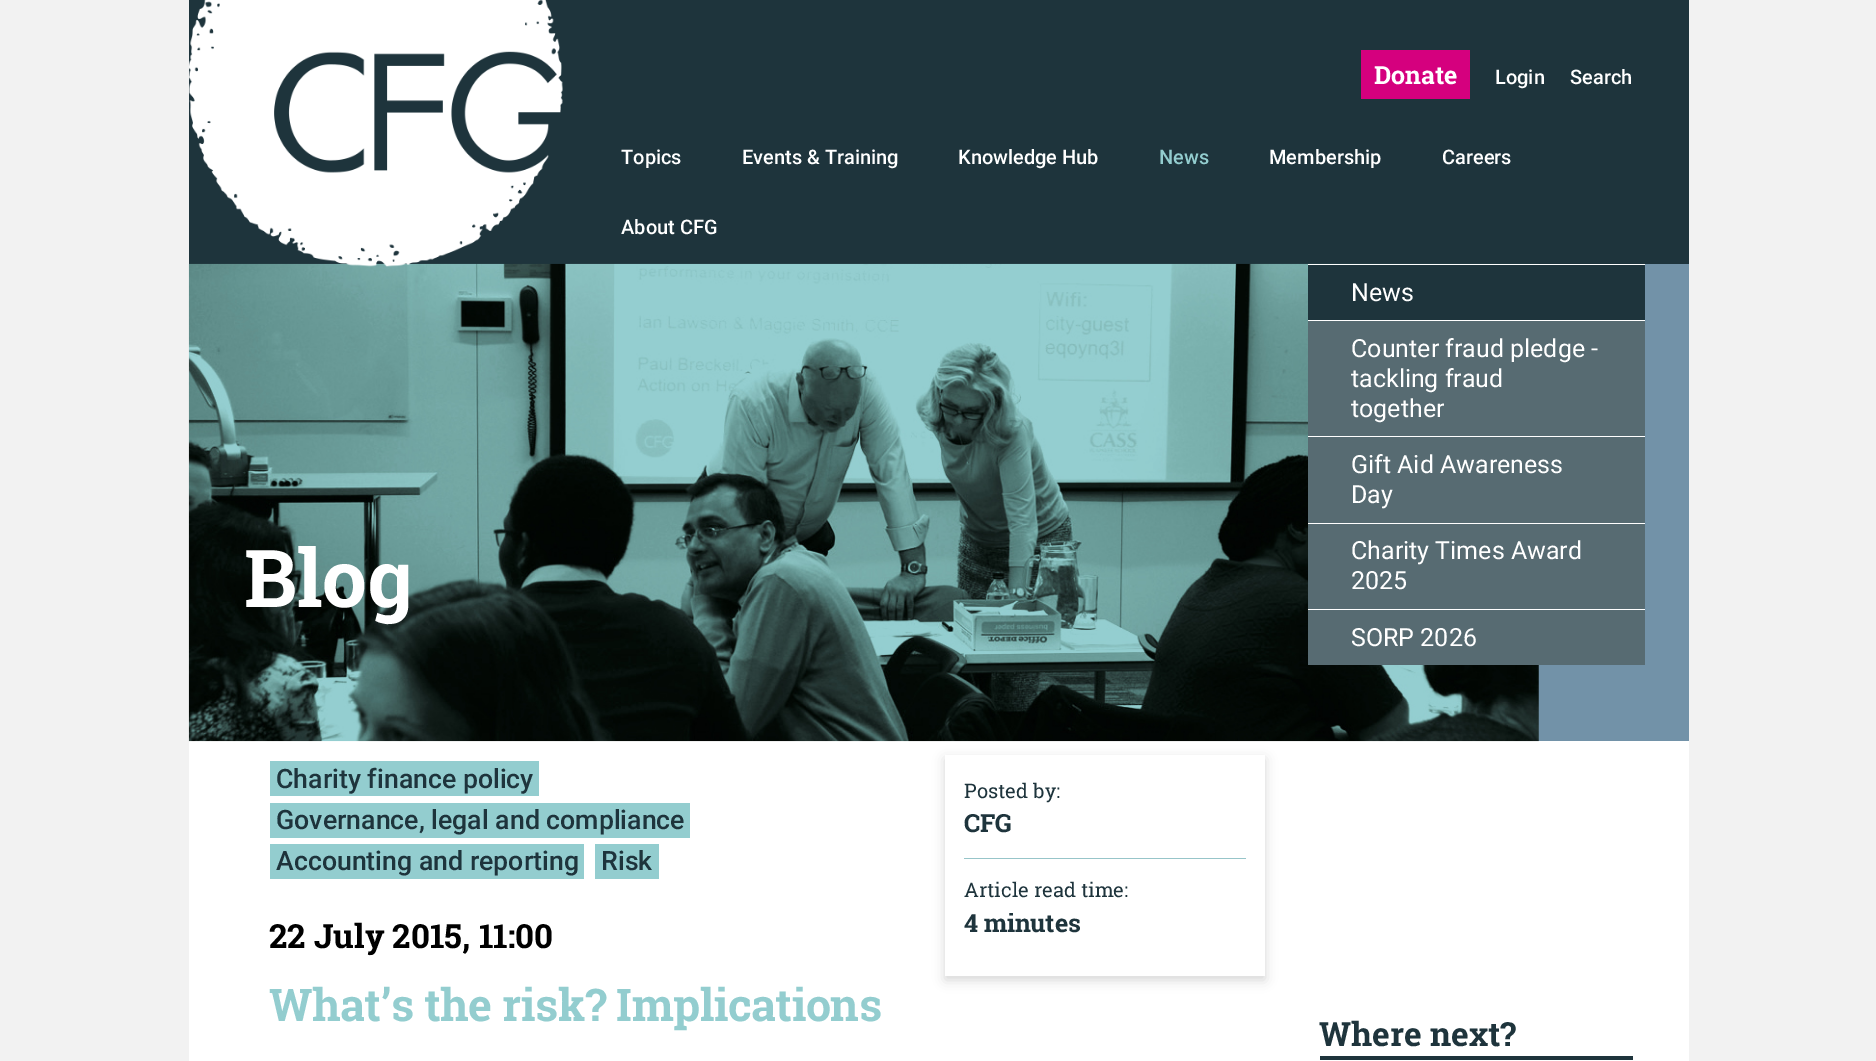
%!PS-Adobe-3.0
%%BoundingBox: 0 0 1876 1061
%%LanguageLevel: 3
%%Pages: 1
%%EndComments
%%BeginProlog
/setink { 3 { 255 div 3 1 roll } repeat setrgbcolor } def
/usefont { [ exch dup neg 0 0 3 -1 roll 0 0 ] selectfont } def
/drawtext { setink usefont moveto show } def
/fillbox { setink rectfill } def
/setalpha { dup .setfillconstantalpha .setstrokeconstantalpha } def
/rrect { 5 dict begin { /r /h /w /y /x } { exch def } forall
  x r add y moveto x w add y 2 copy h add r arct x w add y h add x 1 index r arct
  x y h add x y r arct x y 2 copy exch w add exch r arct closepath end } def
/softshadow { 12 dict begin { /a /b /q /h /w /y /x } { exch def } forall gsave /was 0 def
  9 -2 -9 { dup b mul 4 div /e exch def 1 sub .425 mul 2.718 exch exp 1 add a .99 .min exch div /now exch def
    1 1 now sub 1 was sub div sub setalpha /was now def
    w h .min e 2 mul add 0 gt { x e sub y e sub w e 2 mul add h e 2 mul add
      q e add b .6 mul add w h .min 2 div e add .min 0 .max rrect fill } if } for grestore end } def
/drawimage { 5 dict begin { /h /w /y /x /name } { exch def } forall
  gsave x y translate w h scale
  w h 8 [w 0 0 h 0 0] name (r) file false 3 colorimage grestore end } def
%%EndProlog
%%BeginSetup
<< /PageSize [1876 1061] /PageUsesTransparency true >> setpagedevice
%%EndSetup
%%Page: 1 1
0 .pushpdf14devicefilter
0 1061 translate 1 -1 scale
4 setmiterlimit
0 0 1876 1061 242 242 242 fillbox
189 741 1500 320 255 255 255 fillbox
189 0 1500 264 30 52 60 fillbox
1538 264 151 477 114 146 168 fillbox
(assets/img2.rgb) 188 263 1351 479 drawimage
(assets/img1.rgb) 189 0 374 267 drawimage
1361 50 109 49 213 0 126 fillbox
(Donate) 1374 84 /RobotoSlab-Bold 25 255 255 255 drawtext
(Login) 1495 84 /Roboto-Medium 20 255 255 255 drawtext
(Search) 1570 84 /Roboto-Medium 20 255 255 255 drawtext
(Topics) 621 164 /Roboto-Medium 20 255 255 255 drawtext
(Events & Training) 742 164 /Roboto-Medium 20 255 255 255 drawtext
(Knowledge Hub) 958 164 /Roboto-Medium 20 255 255 255 drawtext
(News) 1159 164 /Roboto-Medium 20 147 205 207 drawtext
(Membership) 1269 164 /Roboto-Medium 20 255 255 255 drawtext
(Careers) 1442 164 /Roboto-Medium 20 255 255 255 drawtext
(About CFG) 621 234 /Roboto-Medium 20 255 255 255 drawtext
(Blog) 244 607 /RobotoSlab-Bold 80 255 255 255 drawtext
270 761 269 35 147 205 207 fillbox
(Charity finance policy) 276 788 /Roboto-Medium 26.7 30 52 60 drawtext
gsave
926 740 moveto 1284 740 lineto 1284 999 lineto 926 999 lineto closepath 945 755 moveto 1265 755 lineto 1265 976 lineto 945 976 lineto closepath eoclip newpath
0 0 0 setink
945 759 320 221 0 6 0.16 softshadow
grestore
(Posted by:) 964 798 /RobotoSlab-Regular 20 30 52 60 drawtext
/RobotoSlab-Bold 25 usefont
964 832 moveto -0.25 0 (CFG) ashow
964 858 282 1 151 197 201 fillbox
(Article read time:) 964 897 /RobotoSlab-Regular 20 30 52 60 drawtext
/RobotoSlab-Bold 25 usefont
964 932 moveto -0.25 0 (4 minutes) ashow
270 803 420 35 147 205 207 fillbox
(Governance, legal and compliance) 276 829 /Roboto-Medium 26.7 30 52 60 drawtext
270 844 314 35 147 205 207 fillbox
(Accounting and reporting) 276 870 /Roboto-Medium 26.7 30 52 60 drawtext
595 844 64 35 147 205 207 fillbox
(Risk) 601 870 /Roboto-Medium 26.7 30 52 60 drawtext
(22 July 2015, 11:00) 269 948 /RobotoSlab-Bold 33.25 0 0 0 drawtext
/RobotoSlab-Bold 45 usefont
147 205 207 setink
269 1021 moveto -0.45 0 (What’s the risk? Implications) ashow
1308 265 337 55 30 52 60 fillbox
1308 264 337 1 255 255 255 fillbox
(News) 1351 301 /Roboto-Regular 25 255 255 255 drawtext
1308 321 337 115 87 107 114 fillbox
1308 320 337 1 255 255 255 fillbox
(Counter fraud pledge -) 1351 357 /Roboto-Regular 25 255 255 255 drawtext
(tackling fraud) 1351 387 /Roboto-Regular 25 255 255 255 drawtext
(together) 1351 417 /Roboto-Regular 25 255 255 255 drawtext
1308 437 337 86 87 107 114 fillbox
1308 436 337 1 255 255 255 fillbox
(Gift Aid Awareness) 1351 473 /Roboto-Regular 25 255 255 255 drawtext
(Day) 1351 503 /Roboto-Regular 25 255 255 255 drawtext
1308 524 337 85 87 107 114 fillbox
1308 523 337 1 255 255 255 fillbox
(Charity Times Award) 1351 559 /Roboto-Regular 25 255 255 255 drawtext
(2025) 1351 589 /Roboto-Regular 25 255 255 255 drawtext
1308 610 337 55 87 107 114 fillbox
1308 609 337 1 255 255 255 fillbox
(SORP 2026) 1351 646 /Roboto-Regular 25 255 255 255 drawtext
1320 1056 313 4 30 52 60 fillbox
(Where next?) 1319 1046 /RobotoSlab-Bold 33.25 30 52 60 drawtext
.poppdf14devicefilter showpage
%%EOF
